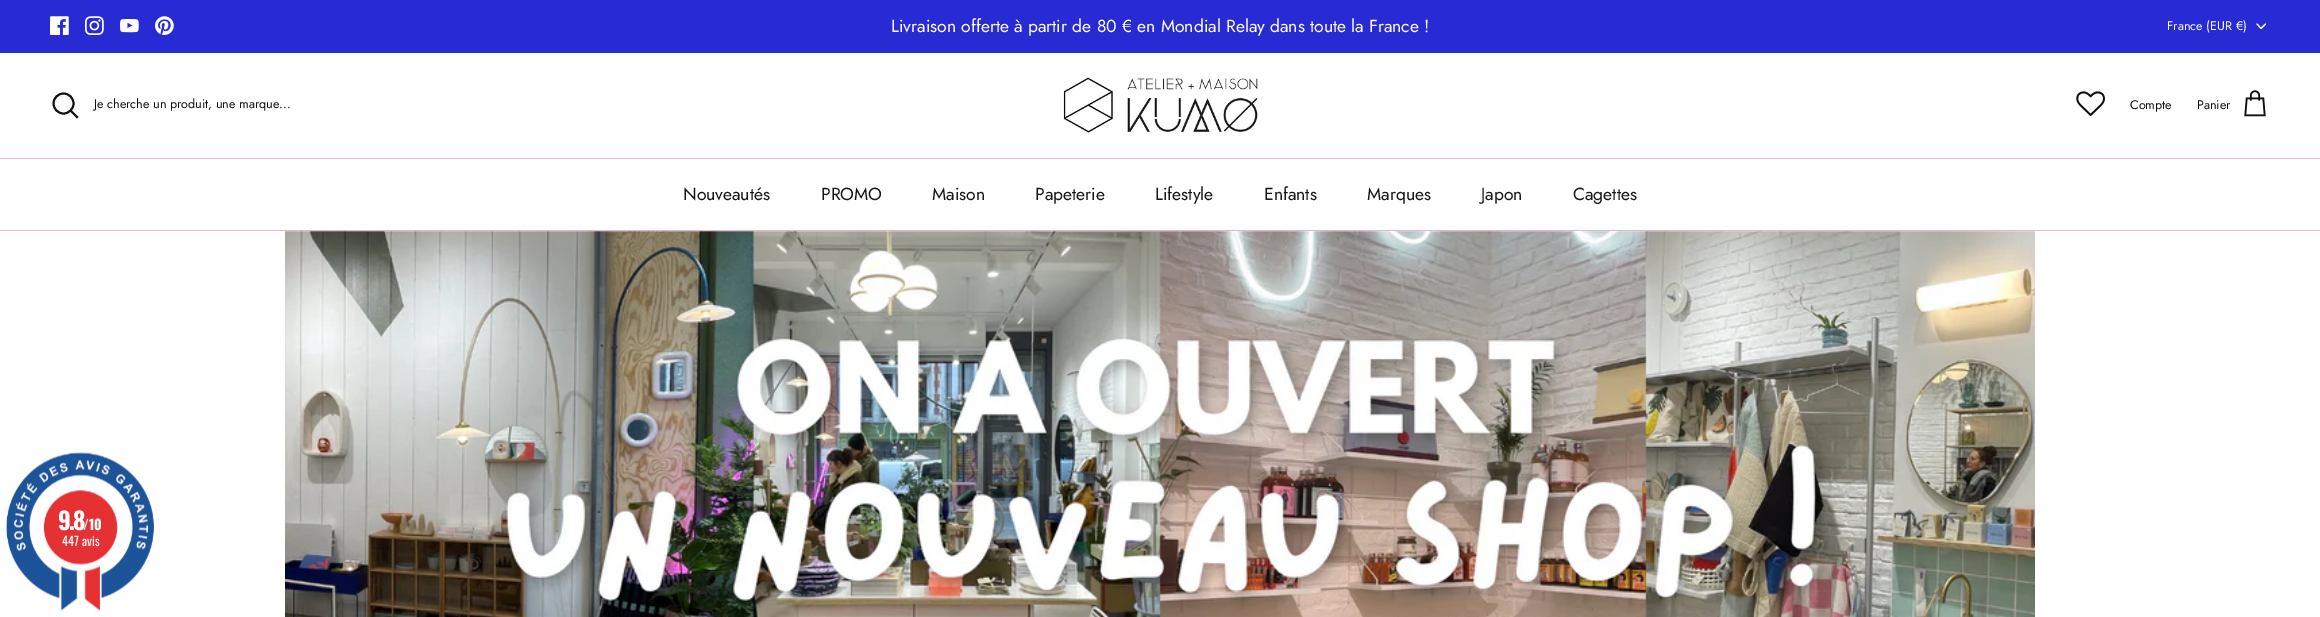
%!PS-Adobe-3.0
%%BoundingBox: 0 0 2320 617
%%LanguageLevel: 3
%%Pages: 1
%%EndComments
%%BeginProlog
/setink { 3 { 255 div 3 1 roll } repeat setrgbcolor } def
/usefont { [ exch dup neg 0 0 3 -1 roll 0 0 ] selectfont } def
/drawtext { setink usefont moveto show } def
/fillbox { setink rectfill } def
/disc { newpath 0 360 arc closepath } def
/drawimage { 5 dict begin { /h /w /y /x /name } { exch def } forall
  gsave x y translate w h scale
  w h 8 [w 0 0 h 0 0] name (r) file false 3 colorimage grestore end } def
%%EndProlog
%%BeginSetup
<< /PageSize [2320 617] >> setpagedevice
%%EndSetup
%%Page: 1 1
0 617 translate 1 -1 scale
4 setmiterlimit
0 0 2320 617 255 255 255 fillbox
0 0 2320 53 40 42 212 fillbox
(assets/img1.rgb) 50 16 19 19 drawimage
(assets/img2.rgb) 85 16 19 19 drawimage
(assets/img3.rgb) 120 19 19 14 drawimage
(assets/img4.rgb) 155 16 19 19 drawimage
(Livraison offerte à partir de 80 € en Mondial Relay dans toute la France !) 891 32 /Jost-Regular 17.5 255 255 255 drawtext
(France \(EUR €\)) 2167 30 /Jost-Regular 12.5 255 255 255 drawtext
1.1 setlinewidth
1 setlinecap
1 setlinejoin
2257 24 moveto 2261 28.5 lineto 2265.5 24 lineto stroke
0 158 2320 1 226 183 204 fillbox
16 15 15 setink
1.9 setlinewidth
0 setlinecap
0 setlinejoin
63.5 103.5 10 disc stroke
(Je cherche un produit, une marque...) 94 108 /Jost-Regular 12.5 16 15 15 drawtext
2 setlinecap
71 111 moveto 77 117 lineto stroke
(assets/img5.rgb) 1063 77 195 56 drawimage
(assets/img6.rgb) 2076 91 29 25 drawimage
(Compte) 2130 109 /Jost-Regular 12.5 16 15 15 drawtext
(Panier) 2197 109 /Jost-Regular 12.5 16 15 15 drawtext
(assets/img7.rgb) 2244 90 22 27 drawimage
0 230 2320 1 226 183 204 fillbox
(Nouveautés) 683 200 /Jost-Regular 17.5 23 23 23 drawtext
(PROMO) 821 200 /Jost-Regular 17.5 23 23 23 drawtext
(Maison) 932 200 /Jost-Regular 17.5 23 23 23 drawtext
(Papeterie) 1035 200 /Jost-Regular 17.5 23 23 23 drawtext
(Lifestyle) 1155 200 /Jost-Regular 17.5 23 23 23 drawtext
(Enfants) 1264 200 /Jost-Regular 17.5 23 23 23 drawtext
(Marques) 1367 200 /Jost-Regular 17.5 23 23 23 drawtext
(Japon) 1481 200 /Jost-Regular 17.5 23 23 23 drawtext
(Cagettes) 1573 200 /Jost-Regular 17.5 23 23 23 drawtext
(assets/img8.rgb) 6 452 148 159 drawimage
/Oswald-Bold 24 usefont
255 255 255 setink
58 530 moveto -2 0 (9.8) ashow
(/10) 83 530 /Oswald-Bold 14 255 255 255 drawtext
(447 avis) 62 546 /Oswald-Regular 12.5 255 255 255 drawtext
(assets/img9.rgb) 285 231 1750 386 drawimage
showpage
%%EOF
